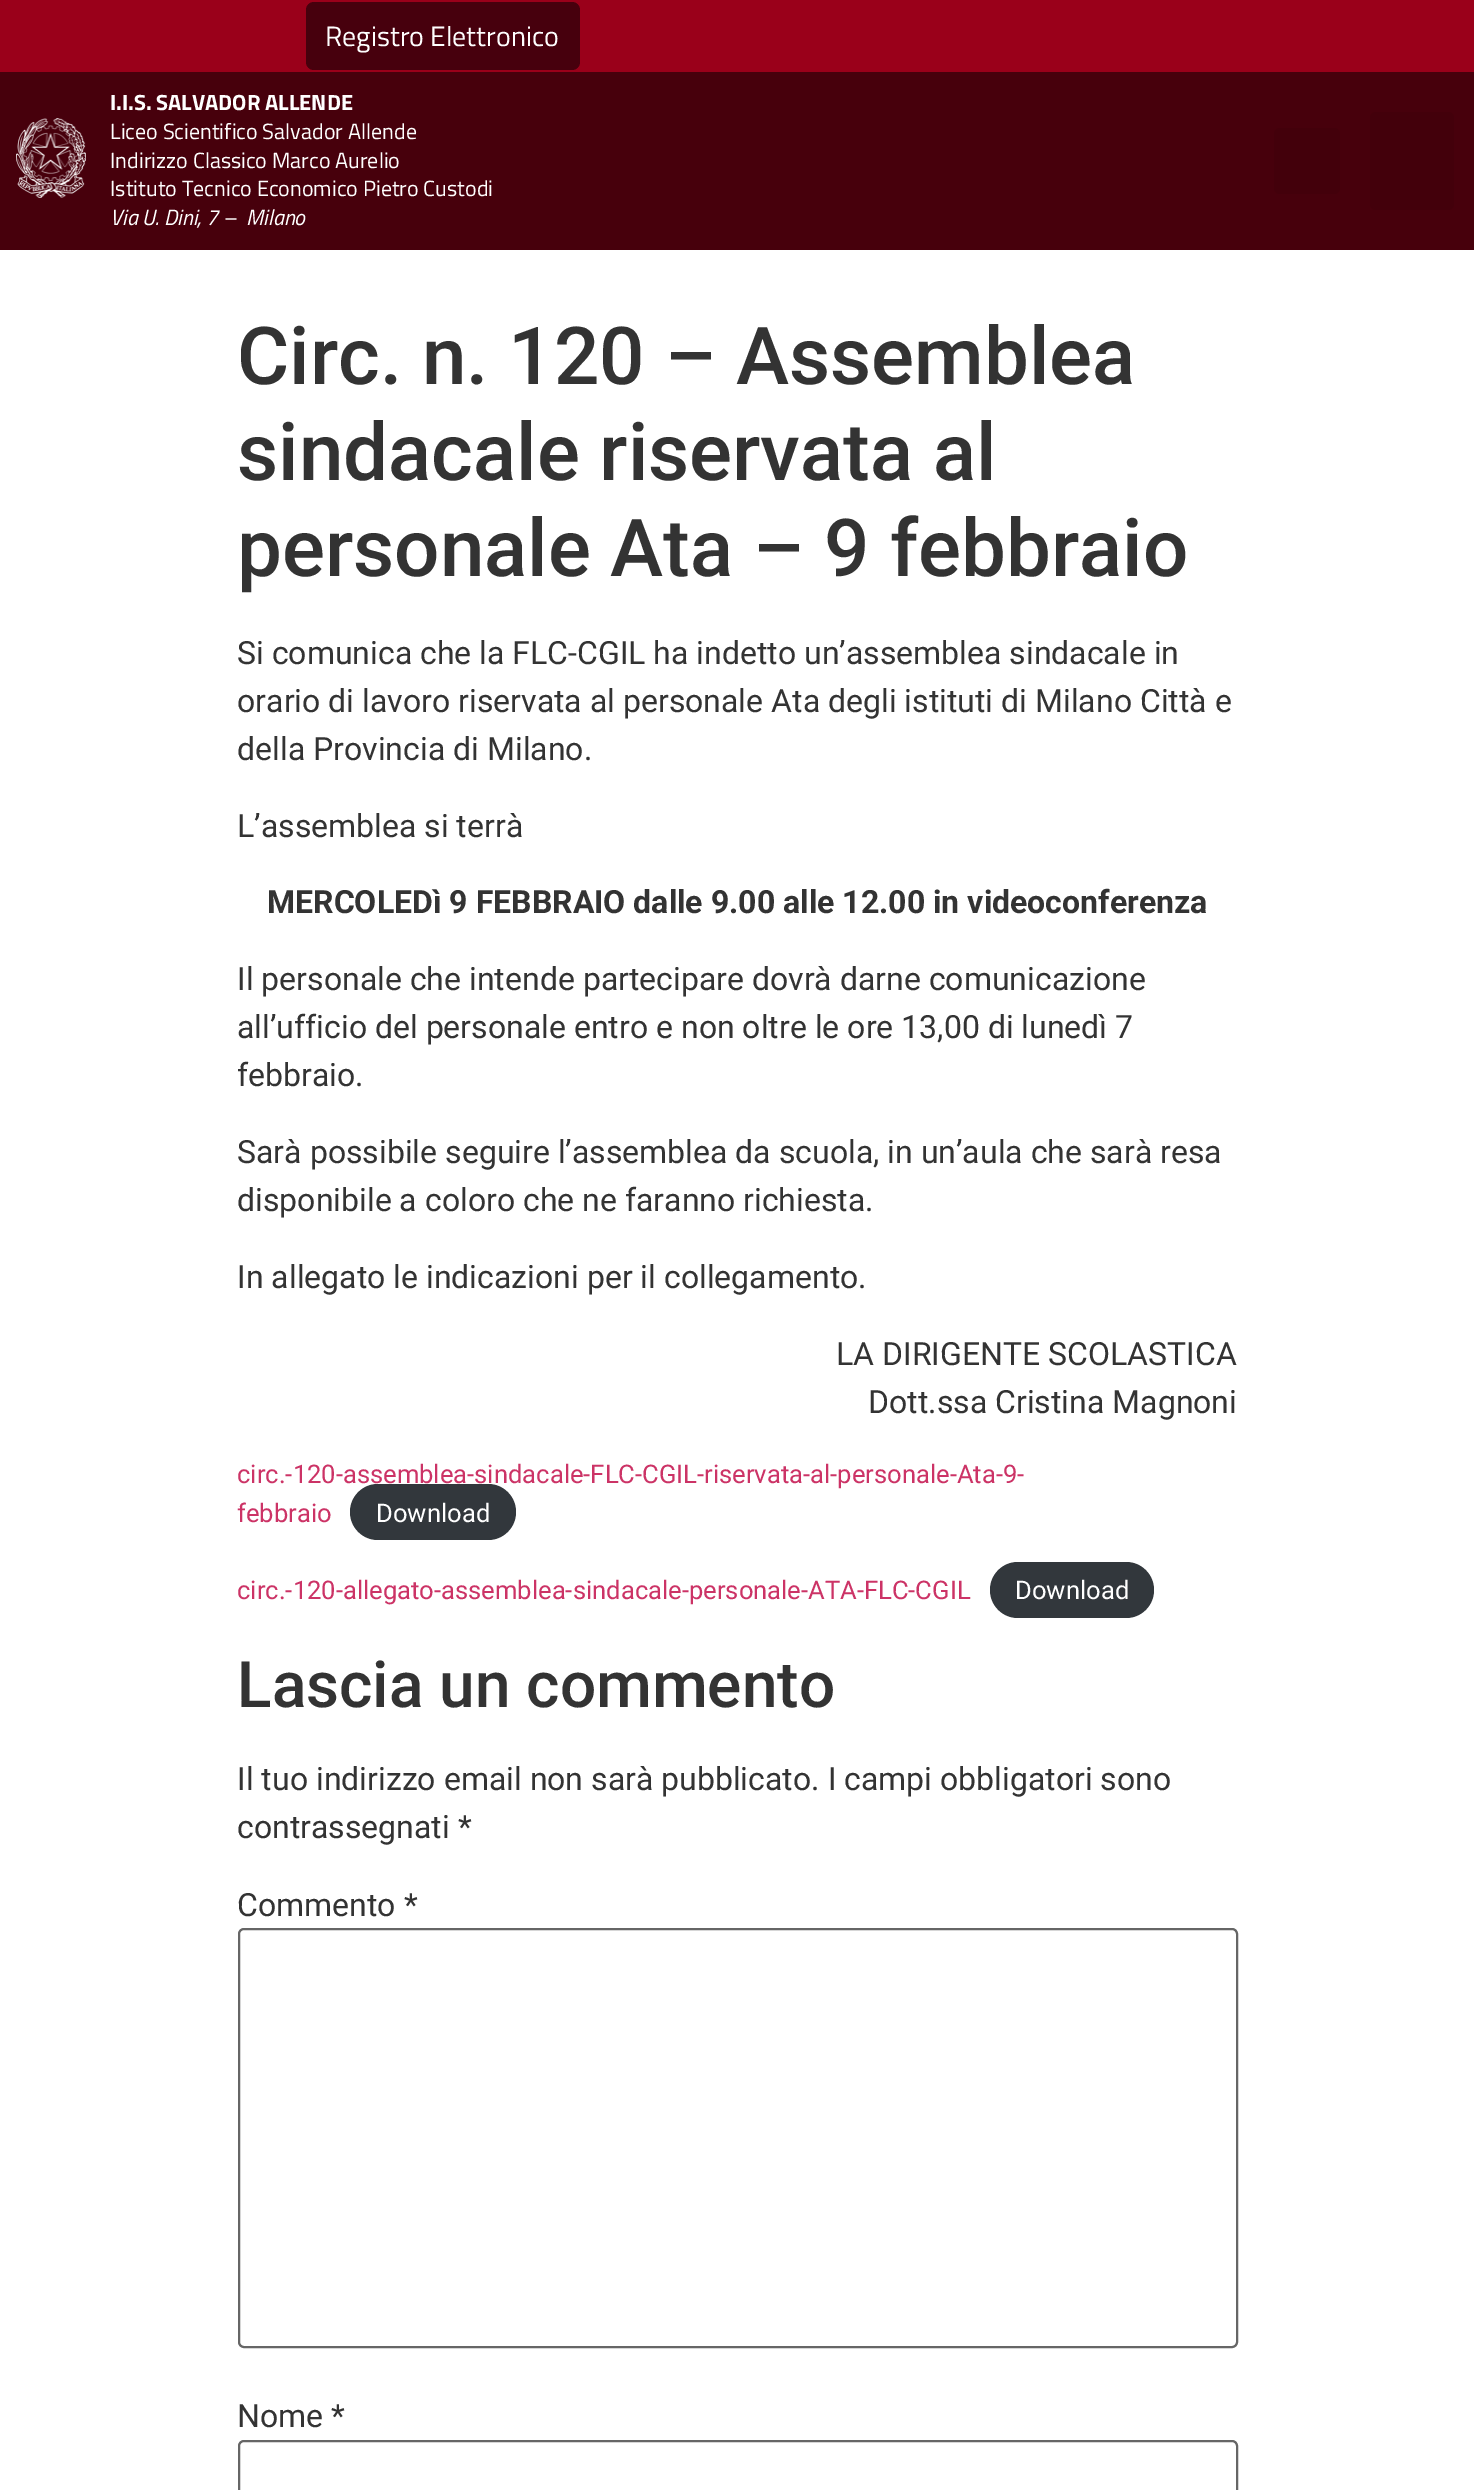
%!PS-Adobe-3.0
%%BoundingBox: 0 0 1474 2490
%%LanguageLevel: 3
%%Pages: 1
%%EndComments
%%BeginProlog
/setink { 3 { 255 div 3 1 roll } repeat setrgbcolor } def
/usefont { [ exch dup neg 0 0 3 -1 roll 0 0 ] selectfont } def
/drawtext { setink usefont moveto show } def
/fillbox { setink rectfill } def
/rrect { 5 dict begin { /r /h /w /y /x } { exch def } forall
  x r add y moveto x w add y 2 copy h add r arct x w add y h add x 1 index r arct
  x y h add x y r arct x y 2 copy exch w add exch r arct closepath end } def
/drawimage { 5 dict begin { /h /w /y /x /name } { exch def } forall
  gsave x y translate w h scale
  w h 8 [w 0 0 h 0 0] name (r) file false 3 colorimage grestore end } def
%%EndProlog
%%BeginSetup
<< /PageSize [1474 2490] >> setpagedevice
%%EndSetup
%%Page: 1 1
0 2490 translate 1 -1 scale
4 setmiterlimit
0 0 1474 2490 255 255 255 fillbox
0 0 1474 72 154 0 26 fillbox
71 0 13 setink
306 2 274 68 8 rrect fill
(Registro Elettronico) 325 46 /TitilliumWeb-Regular 28 255 255 255 drawtext
0 72 1474 178 71 0 12 fillbox
(assets/img1.rgb) 16 118 70 80 drawimage
(I.I.S. SALVADOR ALLENDE) 110 110 /TitilliumWeb-Bold 22 255 255 255 drawtext
(Liceo Scientifico Salvador Allende) 110 139 /TitilliumWeb-Regular 22 255 255 255 drawtext
(Indirizzo Classico Marco Aurelio) 110 168 /TitilliumWeb-Regular 22 255 255 255 drawtext
(Istituto Tecnico Economico Pietro Custodi) 110 196 /TitilliumWeb-Regular 22 255 255 255 drawtext
(Via U. Dini, 7 –  Milano) 110 225 /TitilliumWeb-Italic 22 255 255 255 drawtext
67 0 11 setink
1274 128 66 66 6 rrect fill
1370 112 84 98 6 rrect fill
(Circ. n. 120 – Assemblea) 237 384 /Roboto-Medium 80 51 51 51 drawtext
(sindacale riservata al) 237 480 /Roboto-Medium 80 51 51 51 drawtext
(personale Ata – 9 febbraio) 237 576 /Roboto-Medium 80 51 51 51 drawtext
(Si comunica che la FLC-CGIL ha indetto un’assemblea sindacale in) 237 664 /Roboto-Regular 32 51 51 51 drawtext
(orario di lavoro riservata al personale Ata degli istituti di Milano Città e) 237 712 /Roboto-Regular 32 51 51 51 drawtext
(della Provincia di Milano.) 237 760 /Roboto-Regular 32 51 51 51 drawtext
(L’assemblea si terrà) 237 837 /Roboto-Regular 32 51 51 51 drawtext
(MERCOLEDì 9 FEBBRAIO dalle 9.00 alle 12.00 in videoconferenza) 267 913 /Roboto-Bold 32 51 51 51 drawtext
(Il personale che intende partecipare dovrà darne comunicazione) 237 990 /Roboto-Regular 32 51 51 51 drawtext
(all’ufficio del personale entro e non oltre le ore 13,00 di lunedì 7) 237 1038 /Roboto-Regular 32 51 51 51 drawtext
(febbraio.) 237 1086 /Roboto-Regular 32 51 51 51 drawtext
(Sarà possibile seguire l’assemblea da scuola, in un’aula che sarà resa) 237 1163 /Roboto-Regular 32 51 51 51 drawtext
(disponibile a coloro che ne faranno richiesta.) 237 1211 /Roboto-Regular 32 51 51 51 drawtext
(In allegato le indicazioni per il collegamento.) 237 1288 /Roboto-Regular 32 51 51 51 drawtext
(LA DIRIGENTE SCOLASTICA) 836 1365 /Roboto-Regular 32 51 51 51 drawtext
(Dott.ssa Cristina Magnoni) 868 1413 /Roboto-Regular 32 51 51 51 drawtext
(circ.-120-assemblea-sindacale-FLC-CGIL-riservata-al-personale-Ata-9-) 237 1483 /Roboto-Regular 25.6 204 51 102 drawtext
(febbraio) 237 1522 /Roboto-Regular 25.6 204 51 102 drawtext
50 55 60 setink
350 1484 166 56 28 rrect fill
(Download) 376 1522 /Roboto-Regular 25.6 255 255 255 drawtext
(circ.-120-allegato-assemblea-sindacale-personale-ATA-FLC-CGIL) 237 1599 /Roboto-Regular 25.6 204 51 102 drawtext
50 55 60 setink
990 1562 164 56 28 rrect fill
(Download) 1015 1599 /Roboto-Regular 25.6 255 255 255 drawtext
(Lascia un commento) 237 1707 /Roboto-Medium 64 51 51 51 drawtext
(Il tuo indirizzo email non sarà pubblicato. I campi obbligatori sono) 237 1790 /Roboto-Regular 32 51 51 51 drawtext
(contrassegnati *) 237 1838 /Roboto-Regular 32 51 51 51 drawtext
(Commento *) 237 1916 /Roboto-Regular 32 51 51 51 drawtext
102 102 102 setink
2 setlinewidth
239 1929 998 418 5 rrect stroke
(Nome *) 237 2427 /Roboto-Regular 32 51 51 51 drawtext
102 102 102 setink
239 2441 998 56 5 rrect stroke
showpage
%%EOF
